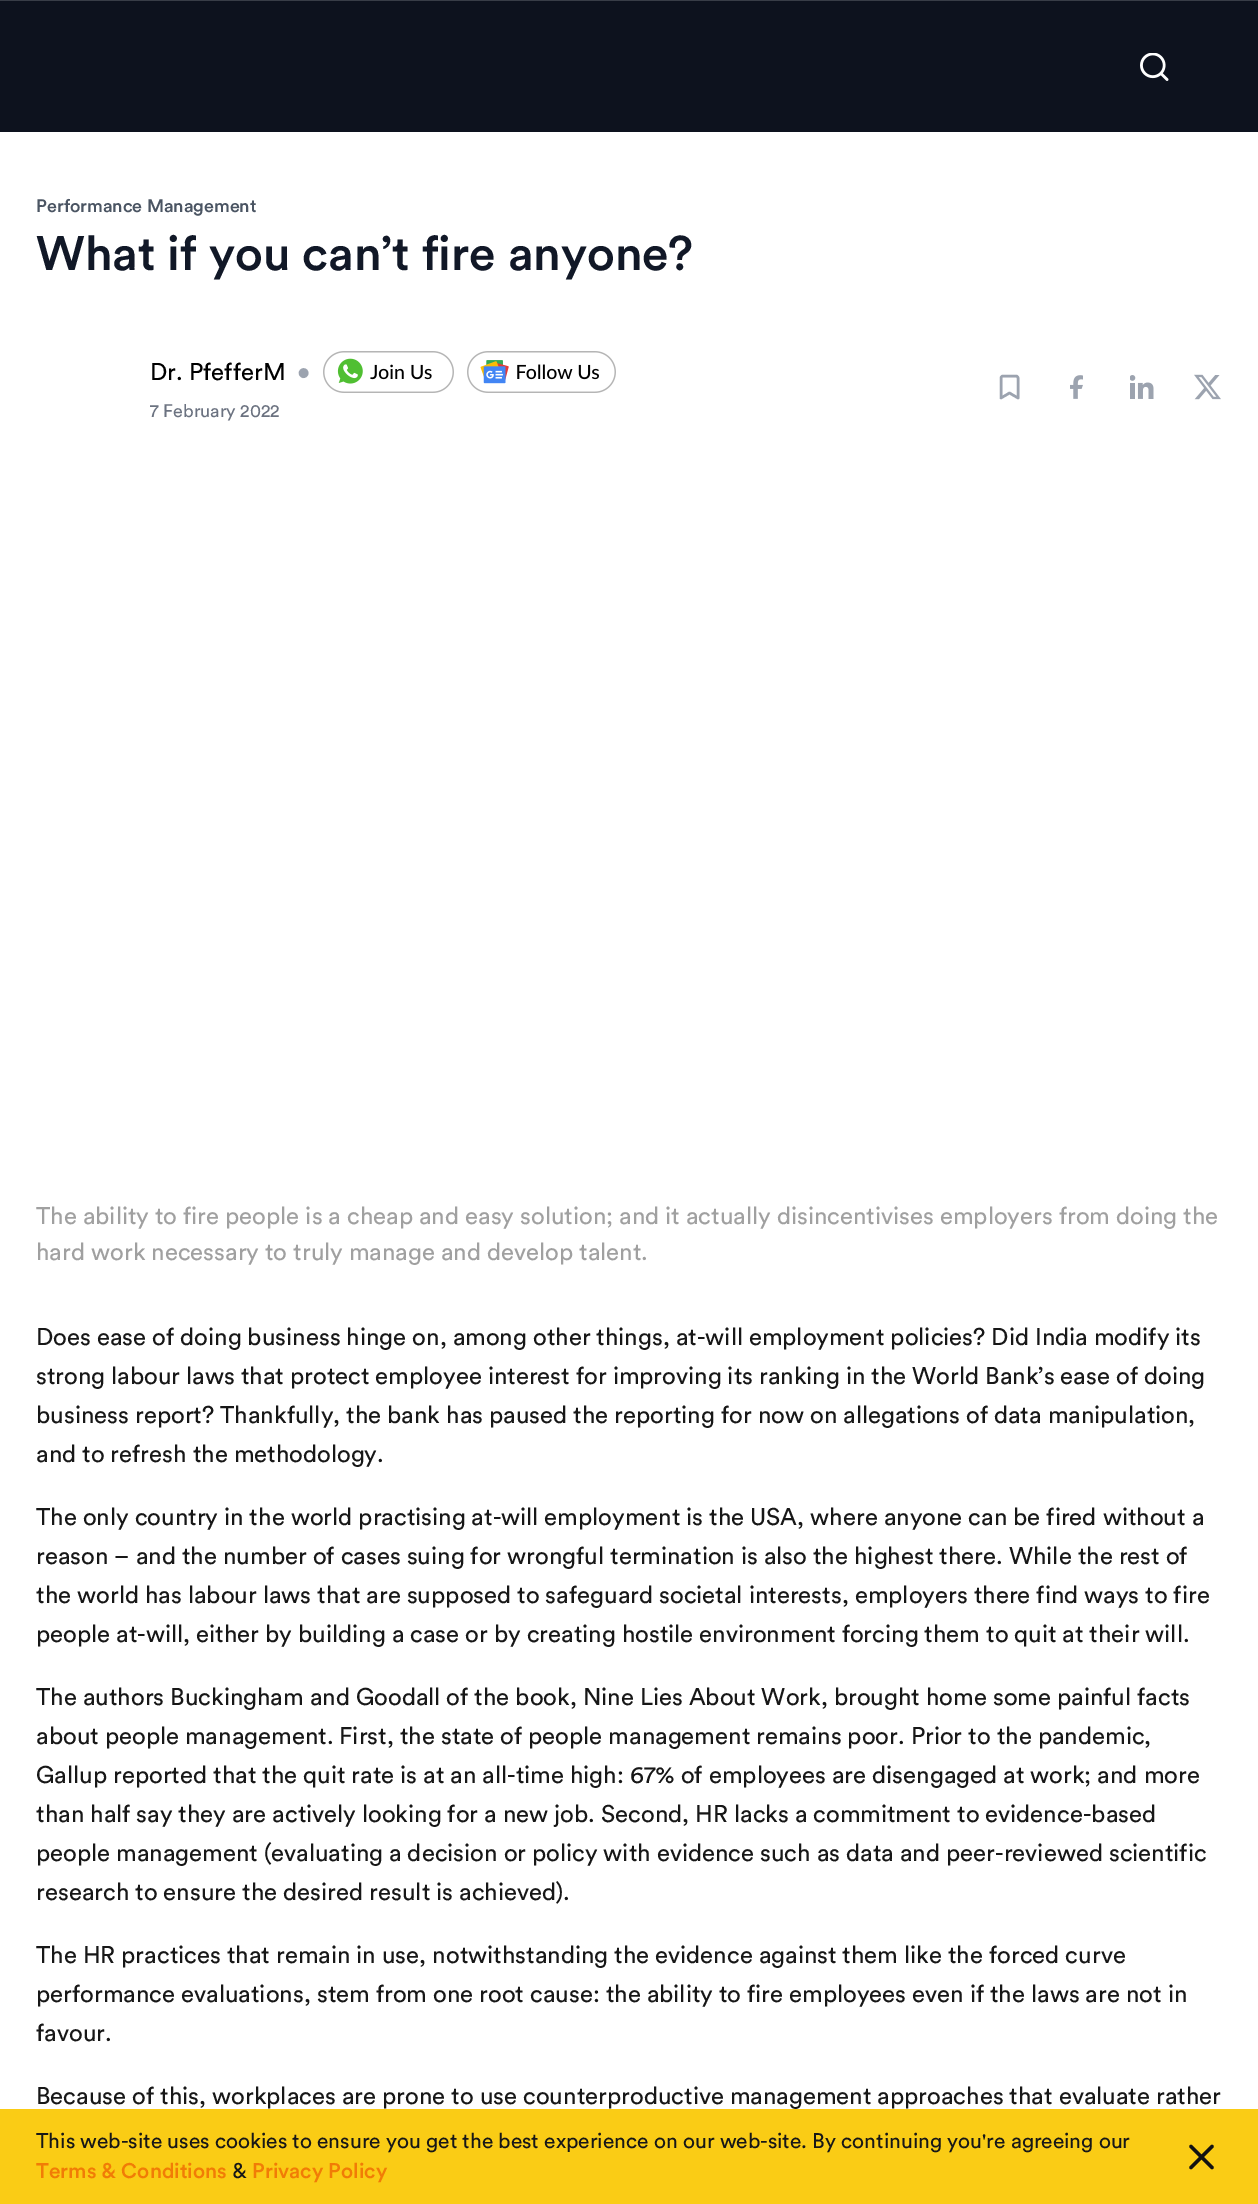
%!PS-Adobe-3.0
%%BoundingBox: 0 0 1258 2204
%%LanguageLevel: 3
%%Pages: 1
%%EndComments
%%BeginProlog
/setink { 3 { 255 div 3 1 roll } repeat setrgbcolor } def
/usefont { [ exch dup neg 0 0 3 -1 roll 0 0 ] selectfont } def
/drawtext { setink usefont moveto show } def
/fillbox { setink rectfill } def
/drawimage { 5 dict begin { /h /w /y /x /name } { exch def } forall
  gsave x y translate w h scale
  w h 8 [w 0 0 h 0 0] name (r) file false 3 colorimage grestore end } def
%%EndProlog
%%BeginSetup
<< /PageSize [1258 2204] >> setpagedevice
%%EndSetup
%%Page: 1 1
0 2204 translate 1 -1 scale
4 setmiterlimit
0 0 1258 2204 255 255 255 fillbox
0 0 1258 1 56 61 71 fillbox
0 1 1258 131 13 18 30 fillbox
(assets/img1.rgb) 1140 53 29 28 drawimage
(Performance Management) 36 212 /Circular-Medium 18 75 85 99 drawtext
(What if you can’t fire anyone?) 36 270 /Circular-Medium 48 17 24 39 drawtext
(Dr. PfefferM) 150 380 /Circular-Regular 24 0 0 0 drawtext
(•) 297 380 /Circular-Regular 24 156 163 175 drawtext
(assets/img2.rgb) 323 351 131 42 drawimage
(assets/img3.rgb) 467 351 149 42 drawimage
(7 February 2022) 150 417 /Circular-Regular 18 107 114 128 drawtext
156 163 175 setink
2.5 setlinewidth
1 setlinecap
1 setlinejoin
1018 398 moveto 1009.5 393 lineto 1001 398 lineto 1001 378 lineto 1001 377 1002 376 1003 376 curveto 1016 376 lineto 1017 376 1018 377 1018 378 curveto closepath stroke
(assets/img4.rgb) 1070 375 13 24 drawimage
(assets/img5.rgb) 1130 375 24 24 drawimage
(assets/img6.rgb) 1194 374 27 26 drawimage
(The ability to fire people is a cheap and easy solution; and it actually disincentivises employers from doing the) 36 1224 /Circular-Regular 24 160 160 160 drawtext
(hard work necessary to truly manage and develop talent.) 36 1260 /Circular-Regular 24 160 160 160 drawtext
(Does ease of doing business hinge on, among other things, at-will employment policies? Did India modify its) 36 1345 /Circular-Regular 24 23 23 23 drawtext
(strong labour laws that protect employee interest for improving its ranking in the World Bank’s ease of doing) 36 1384 /Circular-Regular 24 23 23 23 drawtext
(business report? Thankfully, the bank has paused the reporting for now on allegations of data manipulation,) 36 1423 /Circular-Regular 24 23 23 23 drawtext
(and to refresh the methodology.) 36 1462 /Circular-Regular 24 23 23 23 drawtext
(The only country in the world practising at-will employment is the USA, where anyone can be fired without a) 36 1525 /Circular-Regular 24 23 23 23 drawtext
(reason – and the number of cases suing for wrongful termination is also the highest there. While the rest of) 36 1564 /Circular-Regular 24 23 23 23 drawtext
(the world has labour laws that are supposed to safeguard societal interests, employers there find ways to fire) 36 1603 /Circular-Regular 24 23 23 23 drawtext
(people at-will, either by building a case or by creating hostile environment forcing them to quit at their will.) 36 1642 /Circular-Regular 24 23 23 23 drawtext
(The authors Buckingham and Goodall of the book, Nine Lies About Work, brought home some painful facts) 36 1705 /Circular-Regular 24 23 23 23 drawtext
(about people management. First, the state of people management remains poor. Prior to the pandemic,) 36 1744 /Circular-Regular 24 23 23 23 drawtext
(Gallup reported that the quit rate is at an all-time high: 67% of employees are disengaged at work; and more) 36 1783 /Circular-Regular 24 23 23 23 drawtext
(than half say they are actively looking for a new job. Second, HR lacks a commitment to evidence-based) 36 1822 /Circular-Regular 24 23 23 23 drawtext
(people management \(evaluating a decision or policy with evidence such as data and peer-reviewed scientific) 36 1861 /Circular-Regular 24 23 23 23 drawtext
(research to ensure the desired result is achieved\).) 36 1900 /Circular-Regular 24 23 23 23 drawtext
(The HR practices that remain in use, notwithstanding the evidence against them like the forced curve) 36 1963 /Circular-Regular 24 23 23 23 drawtext
(performance evaluations, stem from one root cause: the ability to fire employees even if the laws are not in) 36 2002 /Circular-Regular 24 23 23 23 drawtext
(favour.) 36 2041 /Circular-Regular 24 23 23 23 drawtext
(Because of this, workplaces are prone to use counterproductive management approaches that evaluate rather) 36 2104 /Circular-Regular 24 23 23 23 drawtext
0 2109 1258 95 250 204 21 fillbox
(This web-site uses cookies to ensure you get the best experience on our web-site. By continuing you're agreeing our) 36 2148 /Circular-Regular 21 23 23 23 drawtext
(Terms & Conditions) 36 2178 /Circular-Medium 21 241 124 6 drawtext
(&) 232 2178 /Circular-Regular 21 23 23 23 drawtext
(Privacy Policy) 252 2178 /Circular-Medium 21 241 124 6 drawtext
18 18 18 setink
3.5 setlinewidth
1212 2146.5 moveto 1191 2167.5 lineto 1191 2146.5 moveto 1212 2167.5 lineto stroke
showpage
%%EOF
